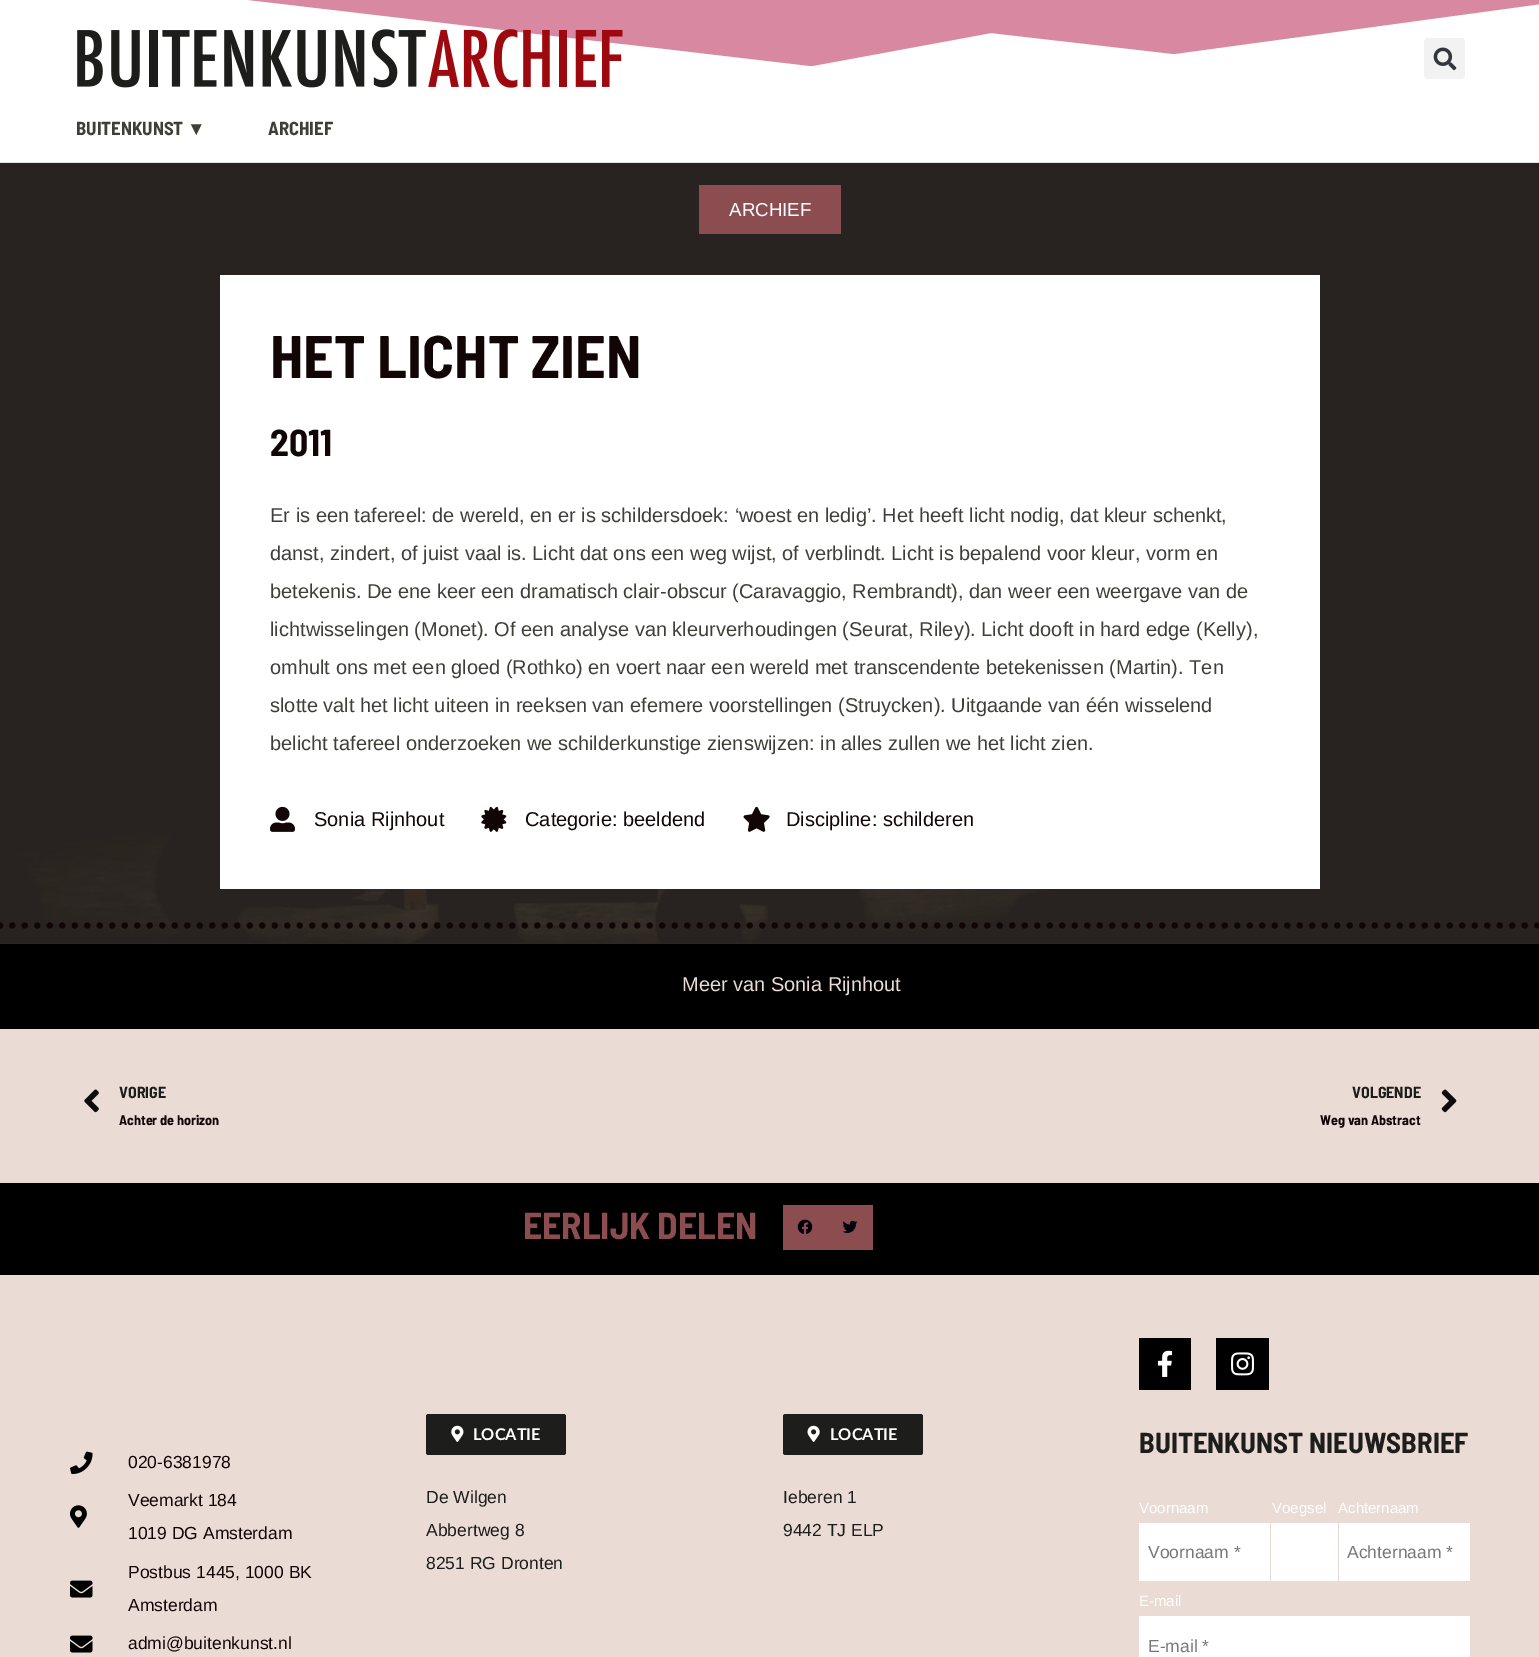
%!PS-Adobe-3.0
%%BoundingBox: 0 0 1539 1657
%%LanguageLevel: 3
%%Pages: 1
%%EndComments
%%BeginProlog
/setink { 3 { 255 div 3 1 roll } repeat setrgbcolor } def
/usefont { [ exch dup neg 0 0 3 -1 roll 0 0 ] selectfont } def
/drawtext { setink usefont moveto show } def
/fillbox { setink rectfill } def
/rrect { 5 dict begin { /r /h /w /y /x } { exch def } forall
  x r add y moveto x w add y 2 copy h add r arct x w add y h add x 1 index r arct
  x y h add x y r arct x y 2 copy exch w add exch r arct closepath end } def
/drawimage { 5 dict begin { /h /w /y /x /name } { exch def } forall
  gsave x y translate w h scale
  w h 8 [w 0 0 h 0 0] name (r) file false 3 colorimage grestore end } def
%%EndProlog
%%BeginSetup
<< /PageSize [1539 1657] >> setpagedevice
%%EndSetup
%%Page: 1 1
0 1657 translate 1 -1 scale
4 setmiterlimit
0 0 1539 1657 255 255 255 fillbox
216 136 160 setink
1174 54 moveto 991 33 lineto 514 121 lineto -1 4 lineto -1 -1 lineto 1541 -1 lineto 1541 4 lineto fill
255 255 255 setink
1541 152 moveto 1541 163 lineto -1 163 lineto -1 -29 lineto closepath fill
(assets/img1.rgb) 77 29 546 59 drawimage
242 242 242 setink
1424 38 41 41 4 rrect fill
(assets/img2.rgb) 1433 47 24 24 drawimage
(BUITENKUNST) 76 135 /BarlowSemiCondensed-Bold 18.75 63 63 58 drawtext
(▼) 187 135 /LiberationSans-Bold 18.75 63 63 58 drawtext
(ARCHIEF) 268 135 /BarlowSemiCondensed-Bold 18.75 63 63 58 drawtext
0 163 1539 781 52 46 41 fillbox
(assets/img3.rgb) 0 162 1539 782 drawimage
699 185 142 49 140 77 81 fillbox
(ARCHIEF) 729 216 /LiberationSans-Regular 18.75 255 255 255 drawtext
220 275 1100 614 255 255 255 fillbox
(HET LICHT ZIEN) 270 378 /BarlowSemiCondensed-Bold 60 17 5 5 drawtext
(2011) 270 456 /BarlowSemiCondensed-Bold 37.5 17 5 5 drawtext
(Er is een tafereel: de wereld, en er is schildersdoek: ‘woest en ledig’. Het heeft licht nodig, dat kleur schenkt,) 270 522 /LiberationSans-Regular 20 63 63 58 drawtext
(danst, zindert, of juist vaal is. Licht dat ons een weg wijst, of verblindt. Licht is bepalend voor kleur, vorm en) 270 560 /LiberationSans-Regular 20 63 63 58 drawtext
(betekenis. De ene keer een dramatisch clair-obscur \(Caravaggio, Rembrandt\), dan weer een weergave van de) 270 598 /LiberationSans-Regular 20 63 63 58 drawtext
(lichtwisselingen \(Monet\). Of een analyse van kleurverhoudingen \(Seurat, Riley\). Licht dooft in hard edge \(Kelly\),) 270 636 /LiberationSans-Regular 20 63 63 58 drawtext
(omhult ons met een gloed \(Rothko\) en voert naar een wereld met transcendente betekenissen \(Martin\). Ten) 270 674 /LiberationSans-Regular 20 63 63 58 drawtext
(slotte valt het licht uiteen in reeksen van efemere voorstellingen \(Struycken\). Uitgaande van één wisselend) 270 712 /LiberationSans-Regular 20 63 63 58 drawtext
(belicht tafereel onderzoeken we schilderkunstige zienswijzen: in alles zullen we het licht zien.) 270 750 /LiberationSans-Regular 20 63 63 58 drawtext
(assets/img4.rgb) 270 806 25 26 drawimage
(Sonia Rijnhout) 314 826 /LiberationSans-Regular 20 17 5 5 drawtext
(assets/img5.rgb) 481 806 26 26 drawimage
(Categorie: beeldend) 525 826 /LiberationSans-Regular 20 17 5 5 drawtext
(assets/img6.rgb) 743 806 27 26 drawimage
(Discipline: schilderen) 786 826 /LiberationSans-Regular 20 17 5 5 drawtext
6.2 setlinewidth
1 setlinecap
[0 12.5] 0 setdash
0 925.5 moveto 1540 925.5 lineto stroke
0 944 1539 85 0 0 0 fillbox
(Meer van Sonia Rijnhout) 682 991 /LiberationSans-Regular 20 234 220 213 drawtext
0 1029 1539 154 234 220 213 fillbox
(assets/img7.rgb) 84 1089 15 24 drawimage
(VORIGE) 119 1098 /BarlowSemiCondensed-Bold 16 29 29 27 drawtext
(Achter de horizon) 119 1125 /BarlowSemiCondensed-Bold 14 17 5 5 drawtext
(VOLGENDE) 1352 1098 /BarlowSemiCondensed-Bold 16 29 29 27 drawtext
(Weg van Abstract) 1320 1125 /BarlowSemiCondensed-Bold 14 17 5 5 drawtext
(assets/img8.rgb) 1441 1089 16 24 drawimage
0 1183 1539 92 0 0 0 fillbox
(EERLIJK DELEN) 523 1239 /BarlowSemiCondensed-Bold 37.5 140 77 81 drawtext
783 1205 90 45 140 77 81 fillbox
(assets/img9.rgb) 797 1219 16 15 drawimage
(assets/img10.rgb) 842 1220 16 13 drawimage
0 1275 1539 382 234 220 213 fillbox
(assets/img11.rgb) 70 1451 23 24 drawimage
(020-6381978) 128 1468 /LiberationSans-Regular 17.5 17 5 5 drawtext
(assets/img12.rgb) 70 1505 17 23 drawimage
(Veemarkt 184) 128 1506 /LiberationSans-Regular 17.5 17 5 5 drawtext
(1019 DG Amsterdam) 128 1539 /LiberationSans-Regular 17.5 17 5 5 drawtext
(assets/img13.rgb) 70 1580 23 18 drawimage
(Postbus 1445, 1000 BK) 128 1578 /LiberationSans-Regular 17.5 17 5 5 drawtext
(Amsterdam) 128 1611 /LiberationSans-Regular 17.5 17 5 5 drawtext
(assets/img13.rgb) 70 1635 23 18 drawimage
(admi@buitenkunst.nl) 128 1649 /LiberationSans-Regular 17.5 17 5 5 drawtext
29 29 27 setink
426 1414 140 41 2.5 rrect fill
(assets/img14.rgb) 451 1425 13 17 drawimage
(LOCATIE) 473 1440 /Lato-Bold 16.25 255 255 255 drawtext
(De Wilgen) 426 1503 /LiberationSans-Regular 17.5 29 29 27 drawtext
(Abbertweg 8) 426 1536 /LiberationSans-Regular 17.5 29 29 27 drawtext
(8251 RG Dronten) 426 1569 /LiberationSans-Regular 17.5 29 29 27 drawtext
783 1414 140 41 2.5 rrect fill
(assets/img15.rgb) 807 1425 13 17 drawimage
(LOCATIE) 830 1440 /Lato-Bold 16.25 255 255 255 drawtext
(Ieberen 1) 783 1503 /LiberationSans-Regular 17.5 29 29 27 drawtext
(9442 TJ ELP) 783 1536 /LiberationSans-Regular 17.5 29 29 27 drawtext
1139 1338 52 52 0 0 0 fillbox
(assets/img16.rgb) 1157 1350 16 27 drawimage
1216 1338 53 52 0 0 0 fillbox
(assets/img17.rgb) 1231 1352 24 24 drawimage
(BUITENKUNST NIEUWSBRIEF) 1139 1453 /BarlowSemiCondensed-Bold 28.75 29 29 27 drawtext
(Voornaam) 1139 1513 /LiberationSans-Regular 15 255 255 255 drawtext
1139 1523 131 58 255 255 255 fillbox
(Voornaam *) 1148 1558 /LiberationSans-Regular 17.5 119 119 118 drawtext
(Voegsel) 1272 1513 /LiberationSans-Regular 15 255 255 255 drawtext
1271 1523 67 58 255 255 255 fillbox
(Achternaam) 1338 1513 /LiberationSans-Regular 15 255 255 255 drawtext
1339 1523 131 58 255 255 255 fillbox
(Achternaam *) 1347 1558 /LiberationSans-Regular 17.5 119 119 118 drawtext
(E-mail) 1139 1606 /LiberationSans-Regular 15 255 255 255 drawtext
1139 1616 331 41 255 255 255 fillbox
(E-mail *) 1148 1652 /LiberationSans-Regular 17.5 119 119 118 drawtext
showpage
%%EOF
